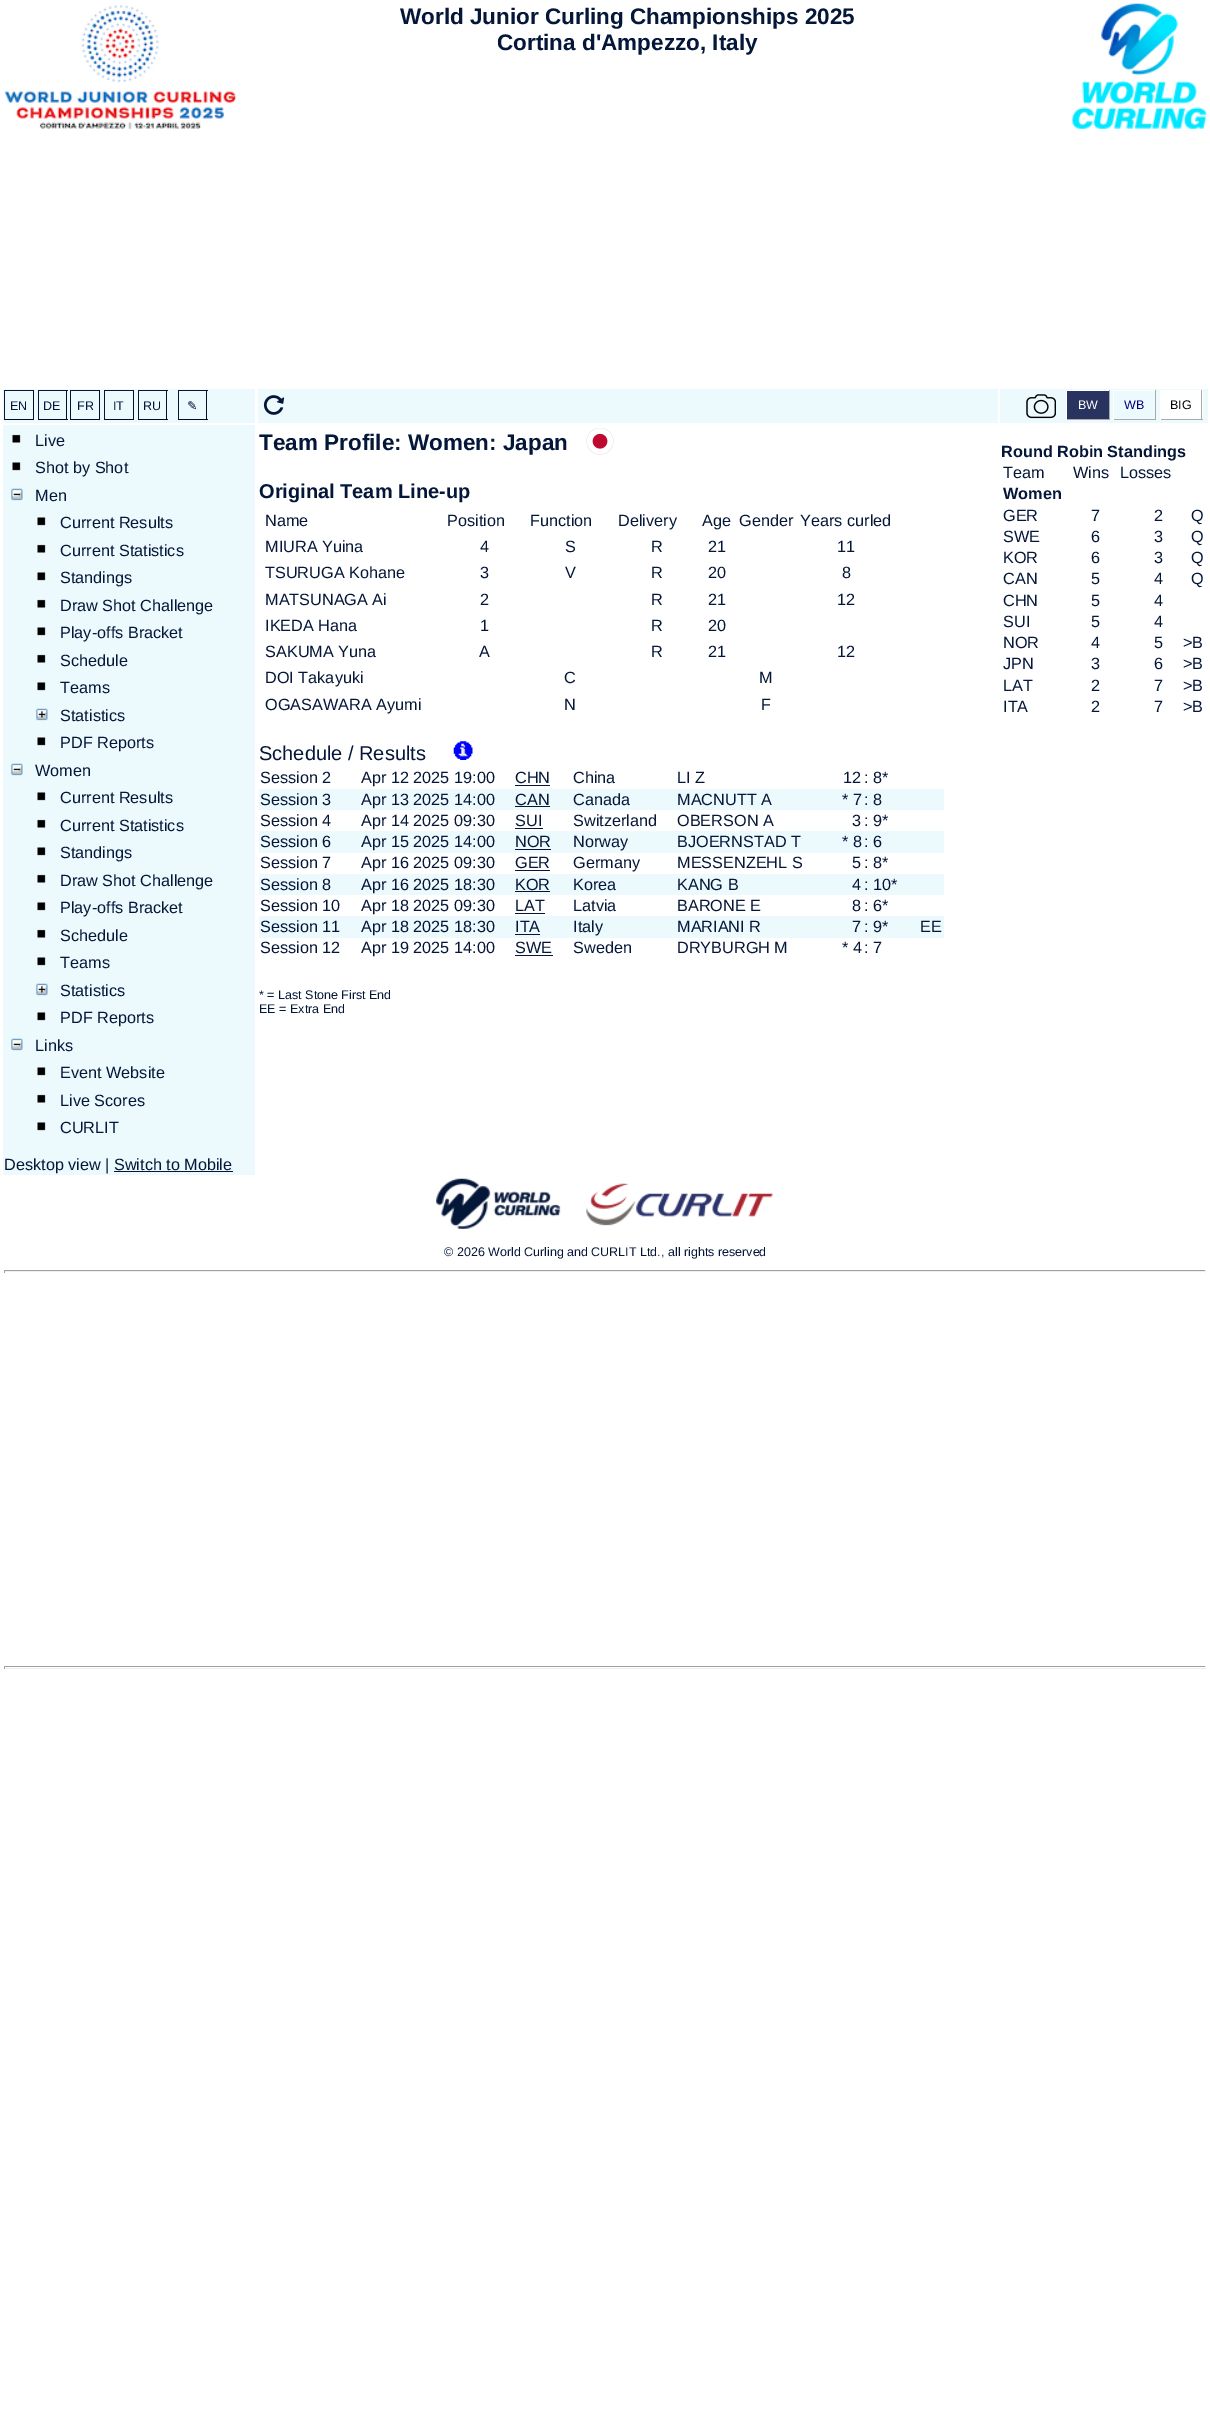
%!PS-Adobe-3.0
%%BoundingBox: 0 0 1210 2412
%%LanguageLevel: 3
%%Pages: 1
%%EndComments
%%BeginProlog
/setink { 3 { 255 div 3 1 roll } repeat setrgbcolor } def
/usefont { [ exch dup neg 0 0 3 -1 roll 0 0 ] selectfont } def
/drawtext { setink usefont moveto show } def
/fillbox { setink rectfill } def
/drawimage { 5 dict begin { /h /w /y /x /name } { exch def } forall
  gsave x y translate w h scale
  w h 8 [w 0 0 h 0 0] name (r) file false 3 colorimage grestore end } def
%%EndProlog
%%BeginSetup
<< /PageSize [1210 2412] >> setpagedevice
%%EndSetup
%%Page: 1 1
0 2412 translate 1 -1 scale
4 setmiterlimit
0 0 1210 2412 255 255 255 fillbox
(assets/img1.rgb) 4 5 233 124 drawimage
(World Junior Curling Championships 2025) 400 24 /LiberationSans-Bold 22.5 5 23 57 drawtext
(Cortina d'Ampezzo, Italy) 497 50 /LiberationSans-Bold 22.5 5 23 57 drawtext
(assets/img2.rgb) 1072 3 135 126 drawimage
3 389 252 34 236 250 254 fillbox
4 390 30 1 5 23 57 fillbox
33 390 1 30 3 15 38 fillbox
4 419 30 1 3 15 38 fillbox
4 390 1 30 5 23 57 fillbox
(EN) 10 410 /LiberationSans-Regular 12.5 5 23 57 drawtext
38 390 30 1 5 23 57 fillbox
66 390 1 30 3 15 38 fillbox
38 419 30 1 3 15 38 fillbox
38 390 1 30 5 23 57 fillbox
(DE) 43 410 /LiberationSans-Regular 12.5 5 23 57 drawtext
70 390 30 1 5 23 57 fillbox
99 390 1 30 3 15 38 fillbox
70 419 30 1 3 15 38 fillbox
70 390 1 30 5 23 57 fillbox
(FR) 77 410 /LiberationSans-Regular 12.5 5 23 57 drawtext
104 390 30 1 5 23 57 fillbox
133 390 1 30 3 15 38 fillbox
104 419 30 1 3 15 38 fillbox
104 390 1 30 5 23 57 fillbox
(IT) 113 410 /LiberationSans-Regular 12.5 5 23 57 drawtext
138 390 30 1 5 23 57 fillbox
166 390 1 30 3 15 38 fillbox
138 419 30 1 3 15 38 fillbox
138 390 1 30 5 23 57 fillbox
(RU) 143 410 /LiberationSans-Regular 12.5 5 23 57 drawtext
178 390 30 1 5 23 57 fillbox
206 390 1 30 3 15 38 fillbox
178 419 30 1 3 15 38 fillbox
178 390 1 30 5 23 57 fillbox
(✎) 187 410 /DejaVuSans-Regular 12.5 5 23 57 drawtext
258 389 740 34 236 250 254 fillbox
(assets/img3.rgb) 263 395 22 20 drawimage
1000 389 208 34 236 250 254 fillbox
(assets/img4.rgb) 1026 394 30 25 drawimage
1067 391 42 28 40 51 96 fillbox
1066 390 44 1 255 255 255 fillbox
1109 390 1 30 170 170 170 fillbox
1066 419 44 1 170 170 170 fillbox
1066 390 1 30 255 255 255 fillbox
(BW) 1078 409 /LiberationSans-Regular 12.5 255 255 255 drawtext
1113 390 43 1 255 255 255 fillbox
1155 390 1 30 170 170 170 fillbox
1113 419 43 1 170 170 170 fillbox
1113 390 1 30 255 255 255 fillbox
(WB) 1124 409 /LiberationSans-Regular 12.5 0 0 128 drawtext
1161 390 42 29 255 255 255 fillbox
1201 390 1 30 170 170 170 fillbox
1160 419 43 1 170 170 170 fillbox
1160 390 1 30 255 255 255 fillbox
(BIG) 1170 409 /LiberationSans-Regular 12.5 0 0 0 drawtext
3 425 252 750 236 250 254 fillbox
(assets/img5.rgb) 12 434 9 9 drawimage
(Live) 35 446 /LiberationSans-Regular 16.25 5 23 57 drawtext
(assets/img6.rgb) 12 462 9 9 drawimage
(Shot by Shot) 35 473 /LiberationSans-Regular 16.25 5 23 57 drawtext
(assets/img7.rgb) 11 488 12 13 drawimage
(Men) 35 501 /LiberationSans-Regular 16.25 5 23 57 drawtext
(assets/img6.rgb) 37 517 9 9 drawimage
(Current Results) 60 528 /LiberationSans-Regular 16.25 5 23 57 drawtext
(assets/img5.rgb) 37 544 9 9 drawimage
(Current Statistics) 60 556 /LiberationSans-Regular 16.25 5 23 57 drawtext
(assets/img6.rgb) 37 572 9 9 drawimage
(Standings) 60 583 /LiberationSans-Regular 16.25 5 23 57 drawtext
(assets/img5.rgb) 37 599 9 9 drawimage
(Draw Shot Challenge) 60 611 /LiberationSans-Regular 16.25 5 23 57 drawtext
(assets/img6.rgb) 37 627 9 9 drawimage
(Play-offs Bracket) 60 638 /LiberationSans-Regular 16.25 5 23 57 drawtext
(assets/img5.rgb) 37 654 9 9 drawimage
(Schedule) 60 666 /LiberationSans-Regular 16.25 5 23 57 drawtext
(assets/img6.rgb) 37 682 9 9 drawimage
(Teams) 60 693 /LiberationSans-Regular 16.25 5 23 57 drawtext
(assets/img8.rgb) 36 708 12 13 drawimage
(Statistics) 60 721 /LiberationSans-Regular 16.25 5 23 57 drawtext
(assets/img6.rgb) 37 737 9 9 drawimage
(PDF Reports) 60 748 /LiberationSans-Regular 16.25 5 23 57 drawtext
(assets/img7.rgb) 11 763 12 13 drawimage
(Women) 35 776 /LiberationSans-Regular 16.25 5 23 57 drawtext
(assets/img6.rgb) 37 792 9 9 drawimage
(Current Results) 60 803 /LiberationSans-Regular 16.25 5 23 57 drawtext
(assets/img5.rgb) 37 819 9 9 drawimage
(Current Statistics) 60 831 /LiberationSans-Regular 16.25 5 23 57 drawtext
(assets/img6.rgb) 37 847 9 9 drawimage
(Standings) 60 858 /LiberationSans-Regular 16.25 5 23 57 drawtext
(assets/img5.rgb) 37 874 9 9 drawimage
(Draw Shot Challenge) 60 886 /LiberationSans-Regular 16.25 5 23 57 drawtext
(assets/img6.rgb) 37 902 9 9 drawimage
(Play-offs Bracket) 60 913 /LiberationSans-Regular 16.25 5 23 57 drawtext
(assets/img5.rgb) 37 929 9 9 drawimage
(Schedule) 60 941 /LiberationSans-Regular 16.25 5 23 57 drawtext
(assets/img6.rgb) 37 957 9 9 drawimage
(Teams) 60 968 /LiberationSans-Regular 16.25 5 23 57 drawtext
(assets/img8.rgb) 36 983 12 13 drawimage
(Statistics) 60 996 /LiberationSans-Regular 16.25 5 23 57 drawtext
(assets/img6.rgb) 37 1012 9 9 drawimage
(PDF Reports) 60 1023 /LiberationSans-Regular 16.25 5 23 57 drawtext
(assets/img7.rgb) 11 1038 12 13 drawimage
(Links) 35 1051 /LiberationSans-Regular 16.25 5 23 57 drawtext
(assets/img6.rgb) 37 1067 9 9 drawimage
(Event Website) 60 1078 /LiberationSans-Regular 16.25 5 23 57 drawtext
(assets/img5.rgb) 37 1094 9 9 drawimage
(Live Scores) 60 1106 /LiberationSans-Regular 16.25 5 23 57 drawtext
(assets/img6.rgb) 37 1122 9 9 drawimage
(CURLIT) 60 1133 /LiberationSans-Regular 16.25 5 23 57 drawtext
(Desktop view | Switch to Mobile) 4 1170 /LiberationSans-Regular 16.25 5 23 57 drawtext
114 1171 119 1 5 23 57 fillbox
(Team Profile: Women: Japan) 259 450 /LiberationSans-Bold 22.5 5 23 57 drawtext
(assets/img9.rgb) 586 428 28 27 drawimage
(Original Team Line-up) 259 498 /LiberationSans-Bold 20 5 23 57 drawtext
(Name) 265 526 /LiberationSans-Regular 16.25 5 23 57 drawtext
(Position) 447 526 /LiberationSans-Regular 16.25 5 23 57 drawtext
(Function) 530 526 /LiberationSans-Regular 16.25 5 23 57 drawtext
(Delivery) 618 526 /LiberationSans-Regular 16.25 5 23 57 drawtext
(Age) 702 526 /LiberationSans-Regular 16.25 5 23 57 drawtext
(Gender) 739 526 /LiberationSans-Regular 16.25 5 23 57 drawtext
(Years curled) 800 526 /LiberationSans-Regular 16.25 5 23 57 drawtext
(MIURA Yuina) 265 552 /LiberationSans-Regular 16.25 5 23 57 drawtext
(4) 480 552 /LiberationSans-Regular 16.25 5 23 57 drawtext
(S) 565 552 /LiberationSans-Regular 16.25 5 23 57 drawtext
(R) 651 552 /LiberationSans-Regular 16.25 5 23 57 drawtext
(21) 708 552 /LiberationSans-Regular 16.25 5 23 57 drawtext
(11) 837 552 /LiberationSans-Regular 16.25 5 23 57 drawtext
(TSURUGA Kohane) 265 578 /LiberationSans-Regular 16.25 5 23 57 drawtext
(3) 480 578 /LiberationSans-Regular 16.25 5 23 57 drawtext
(V) 565 578 /LiberationSans-Regular 16.25 5 23 57 drawtext
(R) 651 578 /LiberationSans-Regular 16.25 5 23 57 drawtext
(20) 708 578 /LiberationSans-Regular 16.25 5 23 57 drawtext
(8) 842 578 /LiberationSans-Regular 16.25 5 23 57 drawtext
(MATSUNAGA Ai) 265 605 /LiberationSans-Regular 16.25 5 23 57 drawtext
(2) 480 605 /LiberationSans-Regular 16.25 5 23 57 drawtext
(R) 651 605 /LiberationSans-Regular 16.25 5 23 57 drawtext
(21) 708 605 /LiberationSans-Regular 16.25 5 23 57 drawtext
(12) 837 605 /LiberationSans-Regular 16.25 5 23 57 drawtext
(IKEDA Hana) 265 631 /LiberationSans-Regular 16.25 5 23 57 drawtext
(1) 480 631 /LiberationSans-Regular 16.25 5 23 57 drawtext
(R) 651 631 /LiberationSans-Regular 16.25 5 23 57 drawtext
(20) 708 631 /LiberationSans-Regular 16.25 5 23 57 drawtext
(SAKUMA Yuna) 265 657 /LiberationSans-Regular 16.25 5 23 57 drawtext
(A) 479 657 /LiberationSans-Regular 16.25 5 23 57 drawtext
(R) 651 657 /LiberationSans-Regular 16.25 5 23 57 drawtext
(21) 708 657 /LiberationSans-Regular 16.25 5 23 57 drawtext
(12) 837 657 /LiberationSans-Regular 16.25 5 23 57 drawtext
(DOI Takayuki) 265 683 /LiberationSans-Regular 16.25 5 23 57 drawtext
(C) 564 683 /LiberationSans-Regular 16.25 5 23 57 drawtext
(M) 759 683 /LiberationSans-Regular 16.25 5 23 57 drawtext
(OGASAWARA Ayumi) 265 710 /LiberationSans-Regular 16.25 5 23 57 drawtext
(N) 564 710 /LiberationSans-Regular 16.25 5 23 57 drawtext
(F) 761 710 /LiberationSans-Regular 16.25 5 23 57 drawtext
(Schedule / Results) 259 760 /LiberationSans-Regular 20 5 23 57 drawtext
(assets/img10.rgb) 453 741 20 19 drawimage
(Session 2) 260 783 /LiberationSans-Regular 16.25 5 23 57 drawtext
(Apr 12 2025 19:00) 361 783 /LiberationSans-Regular 16.25 5 23 57 drawtext
(CHN) 515 783 /LiberationSans-Regular 16.25 5 23 57 drawtext
515 785 35 1 5 23 57 fillbox
(China) 573 783 /LiberationSans-Regular 16.25 5 23 57 drawtext
(LI Z) 677 783 /LiberationSans-Regular 16.25 5 23 57 drawtext
(12) 843 783 /LiberationSans-Regular 16.25 5 23 57 drawtext
(: 8*) 864 783 /LiberationSans-Regular 16.25 5 23 57 drawtext
259 789 685 21 236 250 254 fillbox
(Session 3) 260 805 /LiberationSans-Regular 16.25 5 23 57 drawtext
(Apr 13 2025 14:00) 361 805 /LiberationSans-Regular 16.25 5 23 57 drawtext
(CAN) 515 805 /LiberationSans-Regular 16.25 5 23 57 drawtext
515 806 35 1 5 23 57 fillbox
(Canada) 573 805 /LiberationSans-Regular 16.25 5 23 57 drawtext
(MACNUTT A) 677 805 /LiberationSans-Regular 16.25 5 23 57 drawtext
(* 7) 842 805 /LiberationSans-Regular 16.25 5 23 57 drawtext
(: 8) 864 805 /LiberationSans-Regular 16.25 5 23 57 drawtext
(Session 4) 260 826 /LiberationSans-Regular 16.25 5 23 57 drawtext
(Apr 14 2025 09:30) 361 826 /LiberationSans-Regular 16.25 5 23 57 drawtext
(SUI) 515 826 /LiberationSans-Regular 16.25 5 23 57 drawtext
515 828 28 1 5 23 57 fillbox
(Switzerland) 573 826 /LiberationSans-Regular 16.25 5 23 57 drawtext
(OBERSON A) 677 826 /LiberationSans-Regular 16.25 5 23 57 drawtext
(3) 852 826 /LiberationSans-Regular 16.25 5 23 57 drawtext
(: 9*) 864 826 /LiberationSans-Regular 16.25 5 23 57 drawtext
259 831 685 22 236 250 254 fillbox
(Session 6) 260 847 /LiberationSans-Regular 16.25 5 23 57 drawtext
(Apr 15 2025 14:00) 361 847 /LiberationSans-Regular 16.25 5 23 57 drawtext
(NOR) 515 847 /LiberationSans-Regular 16.25 5 23 57 drawtext
515 849 36 1 5 23 57 fillbox
(Norway) 573 847 /LiberationSans-Regular 16.25 5 23 57 drawtext
(BJOERNSTAD T) 677 847 /LiberationSans-Regular 16.25 5 23 57 drawtext
(* 8) 842 847 /LiberationSans-Regular 16.25 5 23 57 drawtext
(: 6) 864 847 /LiberationSans-Regular 16.25 5 23 57 drawtext
(Session 7) 260 868 /LiberationSans-Regular 16.25 5 23 57 drawtext
(Apr 16 2025 09:30) 361 868 /LiberationSans-Regular 16.25 5 23 57 drawtext
(GER) 515 868 /LiberationSans-Regular 16.25 5 23 57 drawtext
515 870 35 1 5 23 57 fillbox
(Germany) 573 868 /LiberationSans-Regular 16.25 5 23 57 drawtext
(MESSENZEHL S) 677 868 /LiberationSans-Regular 16.25 5 23 57 drawtext
(5) 852 868 /LiberationSans-Regular 16.25 5 23 57 drawtext
(: 8*) 864 868 /LiberationSans-Regular 16.25 5 23 57 drawtext
259 874 685 21 236 250 254 fillbox
(Session 8) 260 890 /LiberationSans-Regular 16.25 5 23 57 drawtext
(Apr 16 2025 18:30) 361 890 /LiberationSans-Regular 16.25 5 23 57 drawtext
(KOR) 515 890 /LiberationSans-Regular 16.25 5 23 57 drawtext
515 891 35 1 5 23 57 fillbox
(Korea) 573 890 /LiberationSans-Regular 16.25 5 23 57 drawtext
(KANG B) 677 890 /LiberationSans-Regular 16.25 5 23 57 drawtext
(4) 852 890 /LiberationSans-Regular 16.25 5 23 57 drawtext
(: 10*) 864 890 /LiberationSans-Regular 16.25 5 23 57 drawtext
(Session 10) 260 911 /LiberationSans-Regular 16.25 5 23 57 drawtext
(Apr 18 2025 09:30) 361 911 /LiberationSans-Regular 16.25 5 23 57 drawtext
(LAT) 515 911 /LiberationSans-Regular 16.25 5 23 57 drawtext
515 913 30 1 5 23 57 fillbox
(Latvia) 573 911 /LiberationSans-Regular 16.25 5 23 57 drawtext
(BARONE E) 677 911 /LiberationSans-Regular 16.25 5 23 57 drawtext
(8) 852 911 /LiberationSans-Regular 16.25 5 23 57 drawtext
(: 6*) 864 911 /LiberationSans-Regular 16.25 5 23 57 drawtext
259 916 685 22 236 250 254 fillbox
(Session 11) 260 932 /LiberationSans-Regular 16.25 5 23 57 drawtext
(Apr 18 2025 18:30) 361 932 /LiberationSans-Regular 16.25 5 23 57 drawtext
(ITA) 515 932 /LiberationSans-Regular 16.25 5 23 57 drawtext
515 934 25 1 5 23 57 fillbox
(Italy) 573 932 /LiberationSans-Regular 16.25 5 23 57 drawtext
(MARIANI R) 677 932 /LiberationSans-Regular 16.25 5 23 57 drawtext
(7) 852 932 /LiberationSans-Regular 16.25 5 23 57 drawtext
(: 9*) 864 932 /LiberationSans-Regular 16.25 5 23 57 drawtext
(EE) 920 932 /LiberationSans-Regular 16.25 5 23 57 drawtext
(Session 12) 260 953 /LiberationSans-Regular 16.25 5 23 57 drawtext
(Apr 19 2025 14:00) 361 953 /LiberationSans-Regular 16.25 5 23 57 drawtext
(SWE) 515 953 /LiberationSans-Regular 16.25 5 23 57 drawtext
515 955 38 1 5 23 57 fillbox
(Sweden) 573 953 /LiberationSans-Regular 16.25 5 23 57 drawtext
(DRYBURGH M) 677 953 /LiberationSans-Regular 16.25 5 23 57 drawtext
(* 4) 842 953 /LiberationSans-Regular 16.25 5 23 57 drawtext
(: 7) 864 953 /LiberationSans-Regular 16.25 5 23 57 drawtext
(* = Last Stone First End) 259 999 /LiberationSans-Regular 12.5 5 23 57 drawtext
(EE = Extra End) 259 1013 /LiberationSans-Regular 12.5 5 23 57 drawtext
(Round Robin Standings) 1001 457 /LiberationSans-Bold 16.25 5 23 57 drawtext
(Team) 1003 478 /LiberationSans-Regular 16.25 5 23 57 drawtext
(Wins) 1073 478 /LiberationSans-Regular 16.25 5 23 57 drawtext
(Losses) 1120 478 /LiberationSans-Regular 16.25 5 23 57 drawtext
(Women) 1003 499 /LiberationSans-Bold 16.25 5 23 57 drawtext
(GER) 1003 521 /LiberationSans-Regular 16.25 5 23 57 drawtext
(7) 1091 521 /LiberationSans-Regular 16.25 5 23 57 drawtext
(2) 1154 521 /LiberationSans-Regular 16.25 5 23 57 drawtext
(Q) 1191 521 /LiberationSans-Regular 16.25 5 23 57 drawtext
(SWE) 1003 542 /LiberationSans-Regular 16.25 5 23 57 drawtext
(6) 1091 542 /LiberationSans-Regular 16.25 5 23 57 drawtext
(3) 1154 542 /LiberationSans-Regular 16.25 5 23 57 drawtext
(Q) 1191 542 /LiberationSans-Regular 16.25 5 23 57 drawtext
(KOR) 1003 563 /LiberationSans-Regular 16.25 5 23 57 drawtext
(6) 1091 563 /LiberationSans-Regular 16.25 5 23 57 drawtext
(3) 1154 563 /LiberationSans-Regular 16.25 5 23 57 drawtext
(Q) 1191 563 /LiberationSans-Regular 16.25 5 23 57 drawtext
(CAN) 1003 584 /LiberationSans-Regular 16.25 5 23 57 drawtext
(5) 1091 584 /LiberationSans-Regular 16.25 5 23 57 drawtext
(4) 1154 584 /LiberationSans-Regular 16.25 5 23 57 drawtext
(Q) 1191 584 /LiberationSans-Regular 16.25 5 23 57 drawtext
(CHN) 1003 606 /LiberationSans-Regular 16.25 5 23 57 drawtext
(5) 1091 606 /LiberationSans-Regular 16.25 5 23 57 drawtext
(4) 1154 606 /LiberationSans-Regular 16.25 5 23 57 drawtext
(SUI) 1003 627 /LiberationSans-Regular 16.25 5 23 57 drawtext
(5) 1091 627 /LiberationSans-Regular 16.25 5 23 57 drawtext
(4) 1154 627 /LiberationSans-Regular 16.25 5 23 57 drawtext
(NOR) 1003 648 /LiberationSans-Regular 16.25 5 23 57 drawtext
(4) 1091 648 /LiberationSans-Regular 16.25 5 23 57 drawtext
(5) 1154 648 /LiberationSans-Regular 16.25 5 23 57 drawtext
(>B) 1183 648 /LiberationSans-Regular 16.25 5 23 57 drawtext
(JPN) 1003 669 /LiberationSans-Regular 16.25 5 23 57 drawtext
(3) 1091 669 /LiberationSans-Regular 16.25 5 23 57 drawtext
(6) 1154 669 /LiberationSans-Regular 16.25 5 23 57 drawtext
(>B) 1183 669 /LiberationSans-Regular 16.25 5 23 57 drawtext
(LAT) 1003 691 /LiberationSans-Regular 16.25 5 23 57 drawtext
(2) 1091 691 /LiberationSans-Regular 16.25 5 23 57 drawtext
(7) 1154 691 /LiberationSans-Regular 16.25 5 23 57 drawtext
(>B) 1183 691 /LiberationSans-Regular 16.25 5 23 57 drawtext
(ITA) 1003 712 /LiberationSans-Regular 16.25 5 23 57 drawtext
(2) 1091 712 /LiberationSans-Regular 16.25 5 23 57 drawtext
(7) 1154 712 /LiberationSans-Regular 16.25 5 23 57 drawtext
(>B) 1183 712 /LiberationSans-Regular 16.25 5 23 57 drawtext
(assets/img11.rgb) 436 1178 337 51 drawimage
(© 2026 World Curling and CURLIT Ltd., all rights reserved) 444 1256 /LiberationSans-Regular 12.5 5 23 57 drawtext
4 1270 1202 1 159 159 159 fillbox
1205 1270 1 3 238 238 238 fillbox
4 1271 1202 1 238 238 238 fillbox
4 1270 1 3 159 159 159 fillbox
4 1666 1202 1 159 159 159 fillbox
1205 1666 1 3 238 238 238 fillbox
4 1668 1202 1 238 238 238 fillbox
4 1666 1 3 159 159 159 fillbox
showpage
%%EOF
